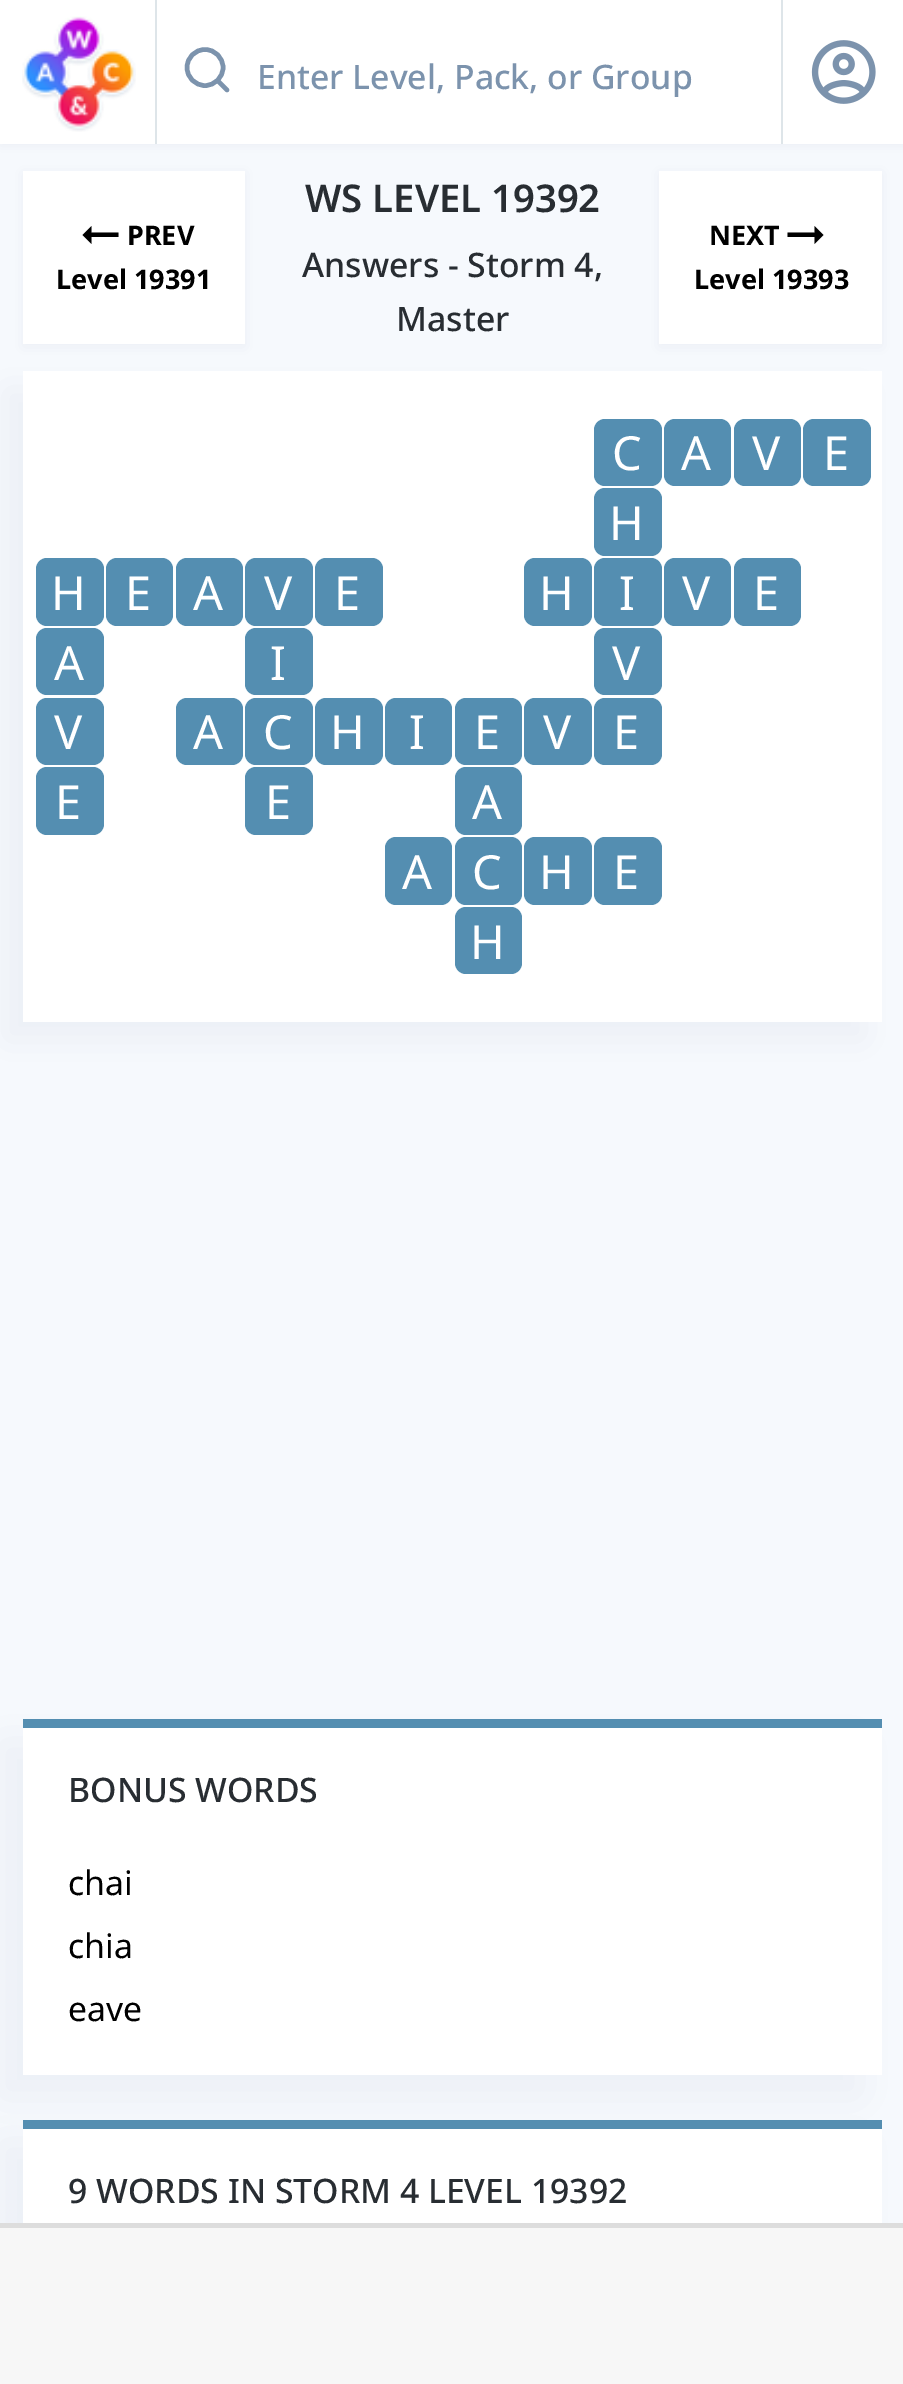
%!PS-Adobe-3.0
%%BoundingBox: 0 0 903 2384
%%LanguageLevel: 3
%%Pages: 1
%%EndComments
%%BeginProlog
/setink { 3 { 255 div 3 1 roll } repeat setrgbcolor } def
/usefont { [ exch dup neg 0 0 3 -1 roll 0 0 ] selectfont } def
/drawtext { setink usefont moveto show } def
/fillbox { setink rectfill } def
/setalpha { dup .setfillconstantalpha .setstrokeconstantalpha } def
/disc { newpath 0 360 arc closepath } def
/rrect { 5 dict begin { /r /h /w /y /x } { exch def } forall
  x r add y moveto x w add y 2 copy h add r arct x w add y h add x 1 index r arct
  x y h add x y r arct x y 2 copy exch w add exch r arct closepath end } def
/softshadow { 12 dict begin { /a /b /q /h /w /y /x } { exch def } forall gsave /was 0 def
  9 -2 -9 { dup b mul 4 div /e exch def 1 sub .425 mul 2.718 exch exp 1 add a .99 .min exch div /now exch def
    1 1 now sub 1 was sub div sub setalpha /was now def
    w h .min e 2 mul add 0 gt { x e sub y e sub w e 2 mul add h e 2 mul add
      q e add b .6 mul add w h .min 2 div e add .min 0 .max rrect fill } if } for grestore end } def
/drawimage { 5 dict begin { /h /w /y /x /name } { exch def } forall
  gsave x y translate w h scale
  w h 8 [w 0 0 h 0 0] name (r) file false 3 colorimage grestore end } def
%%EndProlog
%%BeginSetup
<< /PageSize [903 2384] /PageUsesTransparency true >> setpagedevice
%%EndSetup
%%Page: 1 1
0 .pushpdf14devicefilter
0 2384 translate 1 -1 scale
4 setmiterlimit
0 0 903 2384 246 249 253 fillbox
124 147 173 setink
0 2 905 144 0 5.5 0.1 softshadow
0 0 903 144 255 255 255 fillbox
155 0 2 144 222 229 233 fillbox
(assets/img1.rgb) 22 16 114 116 drawimage
124 147 173 setink
4.5 setlinewidth
205 67.5 18 disc stroke
1 setlinecap
1 setlinejoin
227 90 moveto 218 81 lineto stroke
(Enter Level, Pack, or Group) 257 89 /NotoSans-Medium 33.75 124 147 173 drawtext
781 0 2 144 222 229 233 fillbox
(assets/img2.rgb) 811 40 65 64 drawimage
124 147 173 setink
23 173 222 174 0 7 0.1 softshadow
5 389 859 651 0 18 0.1 softshadow
23 171 222 173 255 255 255 fillbox
0 0 0 setink
91.5 237 moveto 118.5 237 lineto 118.5 232.5 lineto 91.5 232.5 lineto 91.5 226 lineto 82.5 235 lineto 91.5 244 lineto closepath fill
(PREV) 127 245 /NotoSans-Bold 27 0 0 0 drawtext
(Level 19391) 56 289 /NotoSans-Bold 27 0 0 0 drawtext
(WS LEVEL 19392) 305 212 /NotoSans-SemiBold 38.25 40 45 50 drawtext
(Answers - Storm 4,) 302 277 /NotoSans-Medium 33.75 40 45 50 drawtext
(Master) 396 331 /NotoSans-Medium 33.75 40 45 50 drawtext
124 147 173 setink
659 173 223 174 0 7 0.1 softshadow
659 171 223 173 255 255 255 fillbox
(NEXT) 709 245 /NotoSans-Bold 27 0 0 0 drawtext
814.5 232.5 moveto 787.5 232.5 lineto 787.5 237 lineto 814.5 237 lineto 814.5 244 lineto 823.5 235 lineto 814.5 226 lineto closepath fill
(Level 19393) 694 289 /NotoSans-Bold 27 0 0 0 drawtext
23 371 859 651 255 255 255 fillbox
84 142 177 setink
594 419 68 67 11 rrect fill
(C) 612 470 /NotoSans-Regular 47 255 255 255 drawtext
84 142 177 setink
664 419 67 67 11 rrect fill
(A) 681 470 /NotoSans-Regular 47 255 255 255 drawtext
84 142 177 setink
734 419 67 67 11 rrect fill
(V) 752 470 /NotoSans-Regular 47 255 255 255 drawtext
84 142 177 setink
803 419 68 67 11 rrect fill
(E) 823 470 /NotoSans-Regular 47 255 255 255 drawtext
84 142 177 setink
594 488 68 68 11 rrect fill
(H) 609 540 /NotoSans-Regular 47 255 255 255 drawtext
84 142 177 setink
36 558 68 68 11 rrect fill
(H) 51 610 /NotoSans-Regular 47 255 255 255 drawtext
84 142 177 setink
106 558 67 68 11 rrect fill
(E) 125 610 /NotoSans-Regular 47 255 255 255 drawtext
84 142 177 setink
176 558 67 68 11 rrect fill
(A) 193 610 /NotoSans-Regular 47 255 255 255 drawtext
84 142 177 setink
245 558 68 68 11 rrect fill
(V) 264 610 /NotoSans-Regular 47 255 255 255 drawtext
84 142 177 setink
315 558 68 68 11 rrect fill
(E) 334 610 /NotoSans-Regular 47 255 255 255 drawtext
84 142 177 setink
524 558 68 68 11 rrect fill
(H) 539 610 /NotoSans-Regular 47 255 255 255 drawtext
84 142 177 setink
594 558 68 68 11 rrect fill
(I) 619 610 /NotoSans-Regular 47 255 255 255 drawtext
84 142 177 setink
664 558 67 68 11 rrect fill
(V) 682 610 /NotoSans-Regular 47 255 255 255 drawtext
84 142 177 setink
734 558 67 68 11 rrect fill
(E) 753 610 /NotoSans-Regular 47 255 255 255 drawtext
84 142 177 setink
36 628 68 67 11 rrect fill
(A) 54 680 /NotoSans-Regular 47 255 255 255 drawtext
84 142 177 setink
245 628 68 67 11 rrect fill
(I) 270 680 /NotoSans-Regular 47 255 255 255 drawtext
84 142 177 setink
594 628 68 67 11 rrect fill
(V) 612 680 /NotoSans-Regular 47 255 255 255 drawtext
84 142 177 setink
36 698 68 67 11 rrect fill
(V) 54 749 /NotoSans-Regular 47 255 255 255 drawtext
84 142 177 setink
176 698 67 67 11 rrect fill
(A) 193 749 /NotoSans-Regular 47 255 255 255 drawtext
84 142 177 setink
245 698 68 67 11 rrect fill
(C) 263 749 /NotoSans-Regular 47 255 255 255 drawtext
84 142 177 setink
315 698 68 67 11 rrect fill
(H) 330 749 /NotoSans-Regular 47 255 255 255 drawtext
84 142 177 setink
385 698 67 67 11 rrect fill
(I) 409 749 /NotoSans-Regular 47 255 255 255 drawtext
84 142 177 setink
455 698 67 67 11 rrect fill
(E) 474 749 /NotoSans-Regular 47 255 255 255 drawtext
84 142 177 setink
524 698 68 67 11 rrect fill
(V) 543 749 /NotoSans-Regular 47 255 255 255 drawtext
84 142 177 setink
594 698 68 67 11 rrect fill
(E) 613 749 /NotoSans-Regular 47 255 255 255 drawtext
84 142 177 setink
36 767 68 68 11 rrect fill
(E) 55 819 /NotoSans-Regular 47 255 255 255 drawtext
84 142 177 setink
245 767 68 68 11 rrect fill
(E) 265 819 /NotoSans-Regular 47 255 255 255 drawtext
84 142 177 setink
455 767 67 68 11 rrect fill
(A) 472 819 /NotoSans-Regular 47 255 255 255 drawtext
84 142 177 setink
385 837 67 68 11 rrect fill
(A) 402 889 /NotoSans-Regular 47 255 255 255 drawtext
84 142 177 setink
455 837 67 68 11 rrect fill
(C) 472 889 /NotoSans-Regular 47 255 255 255 drawtext
84 142 177 setink
524 837 68 68 11 rrect fill
(H) 539 889 /NotoSans-Regular 47 255 255 255 drawtext
84 142 177 setink
594 837 68 68 11 rrect fill
(E) 613 889 /NotoSans-Regular 47 255 255 255 drawtext
84 142 177 setink
455 907 67 67 11 rrect fill
(H) 470 959 /NotoSans-Regular 47 255 255 255 drawtext
124 147 173 setink
0 1742 860 355 0 22.5 0.1 softshadow
23 1728 859 347 255 255 255 fillbox
23 1719 859 9 84 142 177 fillbox
(BONUS WORDS) 68 1802 /NotoSans-Medium 33.75 40 45 50 drawtext
(chai) 68 1895 /NotoSans-Regular 33.75 0 0 0 drawtext
(chia) 68 1958 /NotoSans-Regular 33.75 0 0 0 drawtext
(eave) 68 2021 /NotoSans-Regular 33.75 0 0 0 drawtext
124 147 173 setink
0 2142 860 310 0 22.5 0.1 softshadow
23 2129 859 94 255 255 255 fillbox
23 2120 859 9 84 142 177 fillbox
(9 WORDS IN STORM 4 LEVEL 19392) 68 2203 /NotoSans-Medium 33.75 40 45 50 drawtext
0 2228 903 156 247 247 247 fillbox
0 2223 903 5 221 221 221 fillbox
.poppdf14devicefilter showpage
%%EOF
